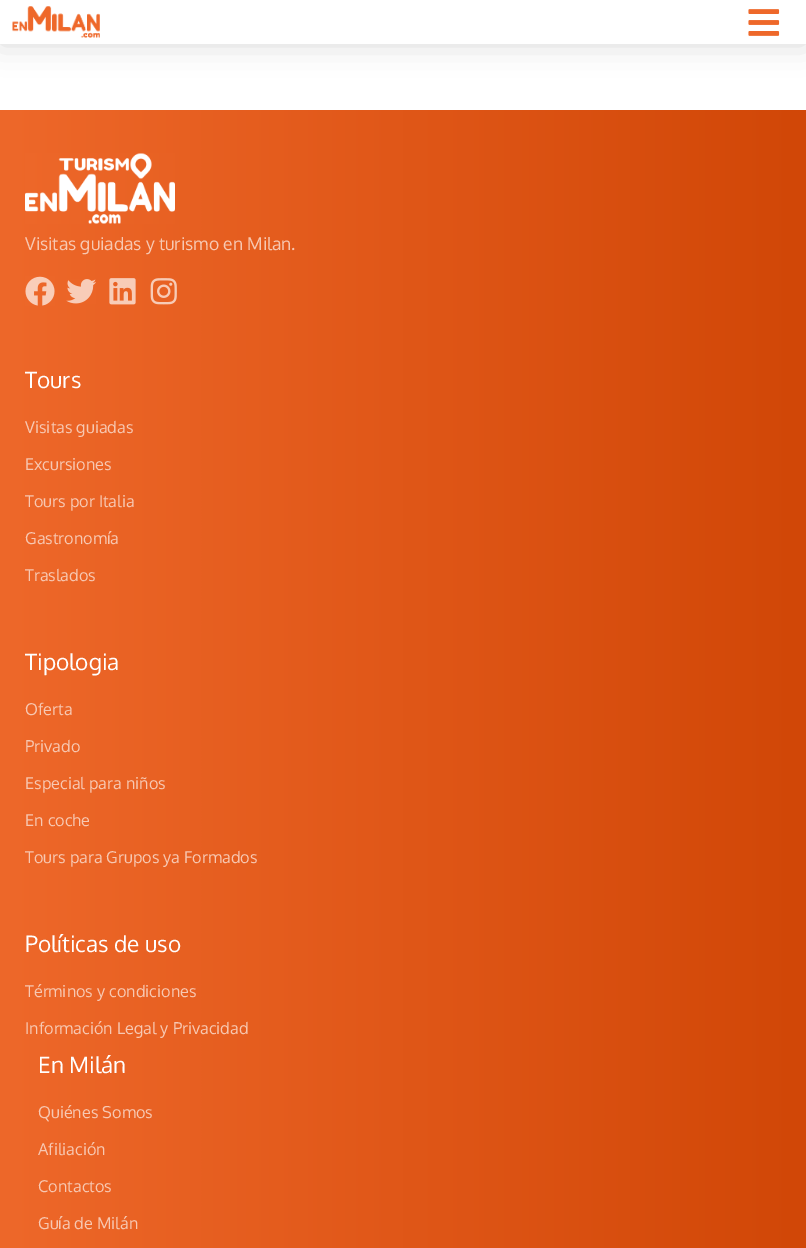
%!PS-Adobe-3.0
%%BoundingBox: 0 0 806 1248
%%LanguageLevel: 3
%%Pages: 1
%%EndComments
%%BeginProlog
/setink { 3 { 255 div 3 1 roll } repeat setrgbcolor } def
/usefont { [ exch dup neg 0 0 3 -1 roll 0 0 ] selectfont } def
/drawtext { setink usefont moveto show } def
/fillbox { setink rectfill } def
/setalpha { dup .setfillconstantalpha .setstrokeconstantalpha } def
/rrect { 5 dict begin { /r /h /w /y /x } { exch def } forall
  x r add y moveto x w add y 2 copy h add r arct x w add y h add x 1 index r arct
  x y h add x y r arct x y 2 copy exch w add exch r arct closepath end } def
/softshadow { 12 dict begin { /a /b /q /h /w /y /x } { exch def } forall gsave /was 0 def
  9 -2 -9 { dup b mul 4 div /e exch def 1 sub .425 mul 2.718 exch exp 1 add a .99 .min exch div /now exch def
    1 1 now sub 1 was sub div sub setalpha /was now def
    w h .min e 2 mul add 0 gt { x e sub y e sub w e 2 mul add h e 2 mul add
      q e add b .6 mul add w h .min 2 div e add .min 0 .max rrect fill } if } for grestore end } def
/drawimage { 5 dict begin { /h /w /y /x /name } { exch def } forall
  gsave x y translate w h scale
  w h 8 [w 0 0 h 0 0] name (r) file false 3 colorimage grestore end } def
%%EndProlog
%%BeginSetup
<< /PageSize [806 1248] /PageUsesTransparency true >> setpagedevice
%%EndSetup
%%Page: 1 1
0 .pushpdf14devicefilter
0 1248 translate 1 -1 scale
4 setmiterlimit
0 0 806 1248 255 255 255 fillbox
0 0 0 setink
0 0 806 44 0 15 0.15 softshadow
0 0 806 44 255 255 255 fillbox
(assets/img1.rgb) 12 6 88 32 drawimage
(assets/img2.rgb) 748 9 32 27 drawimage
gsave 0 110 moveto 806 110 lineto 806 1248 lineto 0 1248 lineto closepath clip newpath
<< /ShadingType 2 /ColorSpace /DeviceRGB /Coords [0 738 806 738] /Extend [true true] /Function << /FunctionType 2 /Domain [0 1] /C0 [0.933 0.408 0.165] /C1 [0.82 0.278 0.027] /N 1 >> >> shfill grestore
(assets/img3.rgb) 25 153 150 71 drawimage
(Visitas guiadas y turismo en Milan.) 25 250 /Oxygen-Regular 17.5 247 200 178 drawtext
(assets/img4.rgb) 25 276 30 30 drawimage
(assets/img5.rgb) 66 279 30 25 drawimage
(assets/img6.rgb) 109 278 27 27 drawimage
(assets/img7.rgb) 150 278 27 27 drawimage
(Tours) 25 388 /Oxygen-Regular 22.5 255 255 255 drawtext
(Visitas guiadas) 25 433 /Oxygen-Regular 16.25 247 200 178 drawtext
(Excursiones) 25 470 /Oxygen-Regular 16.25 247 200 178 drawtext
(Tours por Italia) 25 507 /Oxygen-Regular 16.25 247 200 178 drawtext
(Gastronomía) 25 544 /Oxygen-Regular 16.25 247 200 178 drawtext
(Traslados) 25 581 /Oxygen-Regular 16.25 247 200 178 drawtext
(Tipologia) 25 670 /Oxygen-Regular 22.5 255 255 255 drawtext
(Oferta) 25 715 /Oxygen-Regular 16.25 247 200 178 drawtext
(Privado) 25 752 /Oxygen-Regular 16.25 247 200 178 drawtext
(Especial para niños) 25 789 /Oxygen-Regular 16.25 247 200 178 drawtext
(En coche) 25 826 /Oxygen-Regular 16.25 247 200 178 drawtext
(Tours para Grupos ya Formados) 25 863 /Oxygen-Regular 16.25 247 200 178 drawtext
(Políticas de uso) 25 952 /Oxygen-Regular 22.5 255 255 255 drawtext
(Términos y condiciones) 25 997 /Oxygen-Regular 16.25 247 200 178 drawtext
(Información Legal y Privacidad) 25 1034 /Oxygen-Regular 16.25 247 200 178 drawtext
(En Milán) 38 1073 /Oxygen-Regular 22.5 255 255 255 drawtext
(Quiénes Somos) 38 1118 /Oxygen-Regular 16.25 247 200 178 drawtext
(Afiliación) 38 1155 /Oxygen-Regular 16.25 247 200 178 drawtext
(Contactos) 38 1192 /Oxygen-Regular 16.25 247 200 178 drawtext
(Guía de Milán) 38 1229 /Oxygen-Regular 16.25 247 200 178 drawtext
.poppdf14devicefilter showpage
%%EOF
